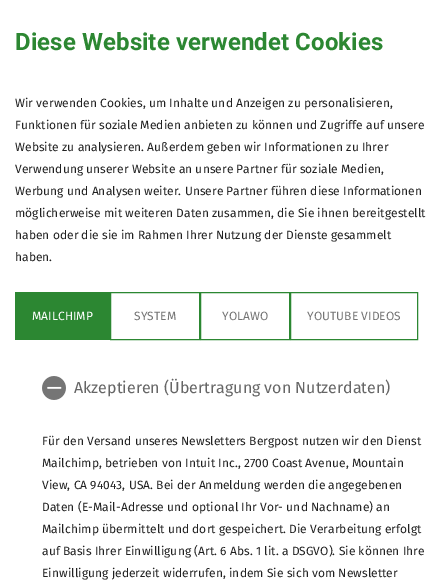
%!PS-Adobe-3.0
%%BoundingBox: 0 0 445 587
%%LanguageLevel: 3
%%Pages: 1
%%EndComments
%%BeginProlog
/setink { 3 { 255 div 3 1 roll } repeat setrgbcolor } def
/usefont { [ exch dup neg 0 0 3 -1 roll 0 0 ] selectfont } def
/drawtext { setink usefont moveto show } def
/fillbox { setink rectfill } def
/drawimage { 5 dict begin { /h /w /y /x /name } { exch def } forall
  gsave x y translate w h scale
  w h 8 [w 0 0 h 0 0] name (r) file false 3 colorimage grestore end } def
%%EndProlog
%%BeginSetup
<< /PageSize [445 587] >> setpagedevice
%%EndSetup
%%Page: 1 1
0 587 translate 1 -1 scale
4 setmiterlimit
0 0 445 587 255 255 255 fillbox
/Roboto-Bold 24 usefont
44 135 50 setink
15 50 moveto 0.1 0 (Diese Website verwendet Cookies) ashow
/FiraSans-Regular 12 usefont
33 33 33 setink
15 107 moveto 0.05 0 (Wir verwenden Cookies, um Inhalte und Anzeigen zu personalisieren,) ashow
15 129 moveto 0.05 0 (Funktionen für soziale Medien anbieten zu können und Zugriffe auf unsere) ashow
15 151 moveto 0.05 0 (Website zu analysieren. Außerdem geben wir Informationen zu Ihrer) ashow
15 173 moveto 0.05 0 (Verwendung unserer Website an unsere Partner für soziale Medien,) ashow
15 195 moveto 0.05 0 (Werbung und Analysen weiter. Unsere Partner führen diese Informationen) ashow
15 217 moveto 0.05 0 (möglicherweise mit weiteren Daten zusammen, die Sie ihnen bereitgestellt) ashow
15 239 moveto 0.05 0 (haben oder die sie im Rahmen Ihrer Nutzung der Dienste gesammelt) ashow
15 261 moveto 0.05 0 (haben.) ashow
15 292 95 48 44 135 50 fillbox
255 255 255 setink
32 320 moveto 0.05 0 (MAILCHIMP) ashow
44 135 50 setink
110.5 292.5 89 47 rectstroke
117 117 117 setink
134 320 moveto 0.05 0 (SYSTEM) ashow
44 135 50 setink
200.5 292.5 89 47 rectstroke
117 117 117 setink
222 320 moveto 0.05 0 (YOLAWO) ashow
44 135 50 setink
290.5 292.5 127 47 rectstroke
117 117 117 setink
307 320 moveto 0.05 0 (YOUTUBE VIDEOS) ashow
(assets/img1.rgb) 42 376 24 24 drawimage
(Akzeptieren \(Übertragung von Nutzerdaten\)) 74 393 /FiraSans-Regular 16 102 102 102 drawtext
/FiraSans-Regular 12 usefont
33 33 33 setink
42 445 moveto 0.05 0 (Für den Versand unseres Newsletters Bergpost nutzen wir den Dienst) ashow
42 467 moveto 0.05 0 (Mailchimp, betrieben von Intuit Inc., 2700 Coast Avenue, Mountain) ashow
42 489 moveto 0.05 0 (View, CA 94043, USA. Bei der Anmeldung werden die angegebenen) ashow
42 511 moveto 0.05 0 (Daten \(E-Mail-Adresse und optional Ihr Vor- und Nachname\) an) ashow
42 533 moveto 0.05 0 (Mailchimp übermittelt und dort gespeichert. Die Verarbeitung erfolgt) ashow
42 555 moveto 0.05 0 (auf Basis Ihrer Einwilligung \(Art. 6 Abs. 1 lit. a DSGVO\). Sie können Ihre) ashow
42 577 moveto 0.05 0 (Einwilligung jederzeit widerrufen, indem Sie sich vom Newsletter) ashow
showpage
%%EOF
